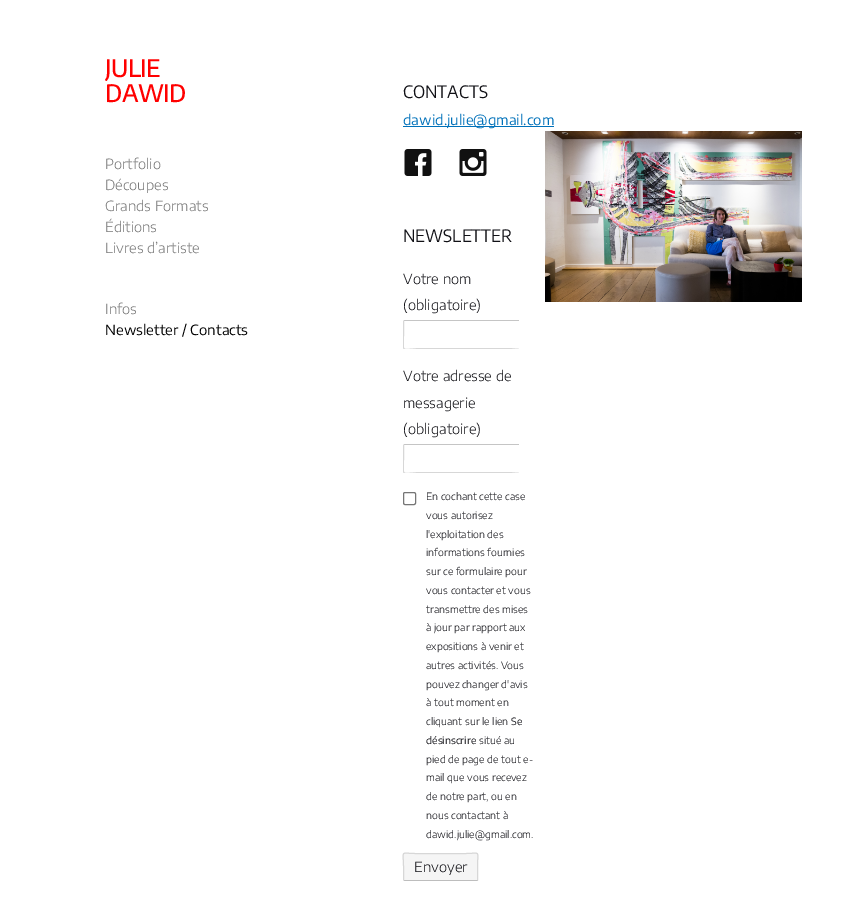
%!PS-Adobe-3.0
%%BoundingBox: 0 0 852 900
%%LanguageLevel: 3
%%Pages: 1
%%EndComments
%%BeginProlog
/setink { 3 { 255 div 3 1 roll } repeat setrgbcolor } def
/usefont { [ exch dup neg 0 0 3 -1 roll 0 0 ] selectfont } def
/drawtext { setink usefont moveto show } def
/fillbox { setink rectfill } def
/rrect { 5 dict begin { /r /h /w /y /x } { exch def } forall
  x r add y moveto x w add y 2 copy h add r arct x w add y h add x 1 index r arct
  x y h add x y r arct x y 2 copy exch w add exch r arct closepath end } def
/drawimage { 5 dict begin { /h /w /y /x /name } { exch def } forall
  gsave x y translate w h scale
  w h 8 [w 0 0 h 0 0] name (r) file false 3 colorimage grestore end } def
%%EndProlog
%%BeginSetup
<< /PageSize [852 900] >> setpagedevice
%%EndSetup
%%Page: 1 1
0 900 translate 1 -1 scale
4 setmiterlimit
0 0 852 900 255 255 255 fillbox
/EncodeSansCondensed-Medium 24 usefont
255 0 0 setink
105 77 moveto -0.5 0 (JULIE) ashow
105 102 moveto -0.5 0 (DAWID) ashow
(Portfolio) 105 169 /EncodeSansSemiExpanded-Light 14 119 119 119 drawtext
(Découpes) 105 190 /EncodeSansSemiExpanded-Light 14 119 119 119 drawtext
(Grands Formats) 105 211 /EncodeSansSemiExpanded-Light 14 119 119 119 drawtext
(Éditions) 105 232 /EncodeSansSemiExpanded-Light 14 119 119 119 drawtext
(Livres d’artiste) 105 253 /EncodeSansSemiExpanded-Light 14 119 119 119 drawtext
(Infos) 105 314 /EncodeSansSemiExpanded-Light 14 119 119 119 drawtext
(Newsletter / Contacts) 105 335 /EncodeSansSemiExpanded-Regular 14 0 0 0 drawtext
(CONTACTS) 403 98 /EncodeSansCondensed-Regular 17 17 17 22 drawtext
403 126 151 1 0 113 186 fillbox
(dawid.julie@gmail.com) 403 125 /EncodeSansSemiExpanded-Regular 14 0 113 186 drawtext
(assets/img1.rgb) 404 149 28 27 drawimage
(assets/img2.rgb) 459 149 28 27 drawimage
(NEWSLETTER) 403 242 /EncodeSansCondensed-Regular 17 17 17 22 drawtext
(Votre nom) 403 284 /EncodeSansSemiExpanded-Light 14 17 17 22 drawtext
(\(obligatoire\)) 403 310 /EncodeSansSemiExpanded-Light 14 17 17 22 drawtext
404 320 115 1 197 197 197 fillbox
gsave
403 320 116 29 rectclip
215 215 215 setink
524.5 320.5 moveto 524.5 334.5 lineto 524.5 355 528.5 348.5 504 348.5 curveto 424 348.5 lineto 399.5 348.5 403.5 355 403.5 334.5 curveto 403.5 320.5 lineto stroke
grestore
(Votre adresse de) 403 381 /EncodeSansSemiExpanded-Light 14 17 17 22 drawtext
(messagerie) 403 408 /EncodeSansSemiExpanded-Light 14 17 17 22 drawtext
(\(obligatoire\)) 403 434 /EncodeSansSemiExpanded-Light 14 17 17 22 drawtext
404 444 115 1 197 197 197 fillbox
gsave
403 444 116 29 rectclip
215 215 215 setink
524.5 444.5 moveto 524.5 458.5 lineto 524.5 479 528.5 472.5 504 472.5 curveto 424 472.5 lineto 399.5 472.5 403.5 479 403.5 458.5 curveto 403.5 444.5 lineto stroke
grestore
118 118 118 setink
403.5 492.5 12 12 1.5 rrect stroke
(En cochant cette case) 426 500 /EncodeSansSemiExpanded-Light 10 17 17 22 drawtext
(vous autorisez) 426 519 /EncodeSansSemiExpanded-Light 10 17 17 22 drawtext
(l'exploitation des) 426 538 /EncodeSansSemiExpanded-Light 10 17 17 22 drawtext
(informations fournies) 426 556 /EncodeSansSemiExpanded-Light 10 17 17 22 drawtext
(sur ce formulaire pour) 426 575 /EncodeSansSemiExpanded-Light 10 17 17 22 drawtext
(vous contacter et vous) 426 594 /EncodeSansSemiExpanded-Light 10 17 17 22 drawtext
(transmettre des mises) 426 613 /EncodeSansSemiExpanded-Light 10 17 17 22 drawtext
(à jour par rapport aux) 426 631 /EncodeSansSemiExpanded-Light 10 17 17 22 drawtext
(expositions à venir et) 426 650 /EncodeSansSemiExpanded-Light 10 17 17 22 drawtext
(autres activités. Vous) 426 669 /EncodeSansSemiExpanded-Light 10 17 17 22 drawtext
(pouvez changer d'avis) 426 688 /EncodeSansSemiExpanded-Light 10 17 17 22 drawtext
(à tout moment en) 426 706 /EncodeSansSemiExpanded-Light 10 17 17 22 drawtext
(cliquant sur le lien) 426 725 /EncodeSansSemiExpanded-Light 10 17 17 22 drawtext
(Se) 511 725 /EncodeSansSemiExpanded-Regular 10 17 17 22 drawtext
(désinscrire) 426 744 /EncodeSansSemiExpanded-Regular 10 17 17 22 drawtext
(situé au) 479 744 /EncodeSansSemiExpanded-Light 10 17 17 22 drawtext
(pied de page de tout e-) 426 763 /EncodeSansSemiExpanded-Light 10 17 17 22 drawtext
(mail que vous recevez) 426 781 /EncodeSansSemiExpanded-Light 10 17 17 22 drawtext
(de notre part, ou en) 426 800 /EncodeSansSemiExpanded-Light 10 17 17 22 drawtext
(nous contactant à) 426 819 /EncodeSansSemiExpanded-Light 10 17 17 22 drawtext
(dawid.julie@gmail.com.) 426 838 /EncodeSansSemiExpanded-Light 10 17 17 22 drawtext
245 245 245 setink
403 853 75 28 1 rrect fill
404 880 74 1 189 189 189 fillbox
215 215 215 setink
403.5 880.5 moveto 403.5 867 lineto 403.5 849.5 399.5 853.5 416 853.5 curveto 465 853.5 lineto 481.5 853.5 477.5 849.5 477.5 867 curveto 477.5 880.5 lineto stroke
(Envoyer) 414 872 /EncodeSansSemiExpanded-Light 14 17 17 22 drawtext
(assets/img3.rgb) 545 131 257 171 drawimage
showpage
%%EOF
